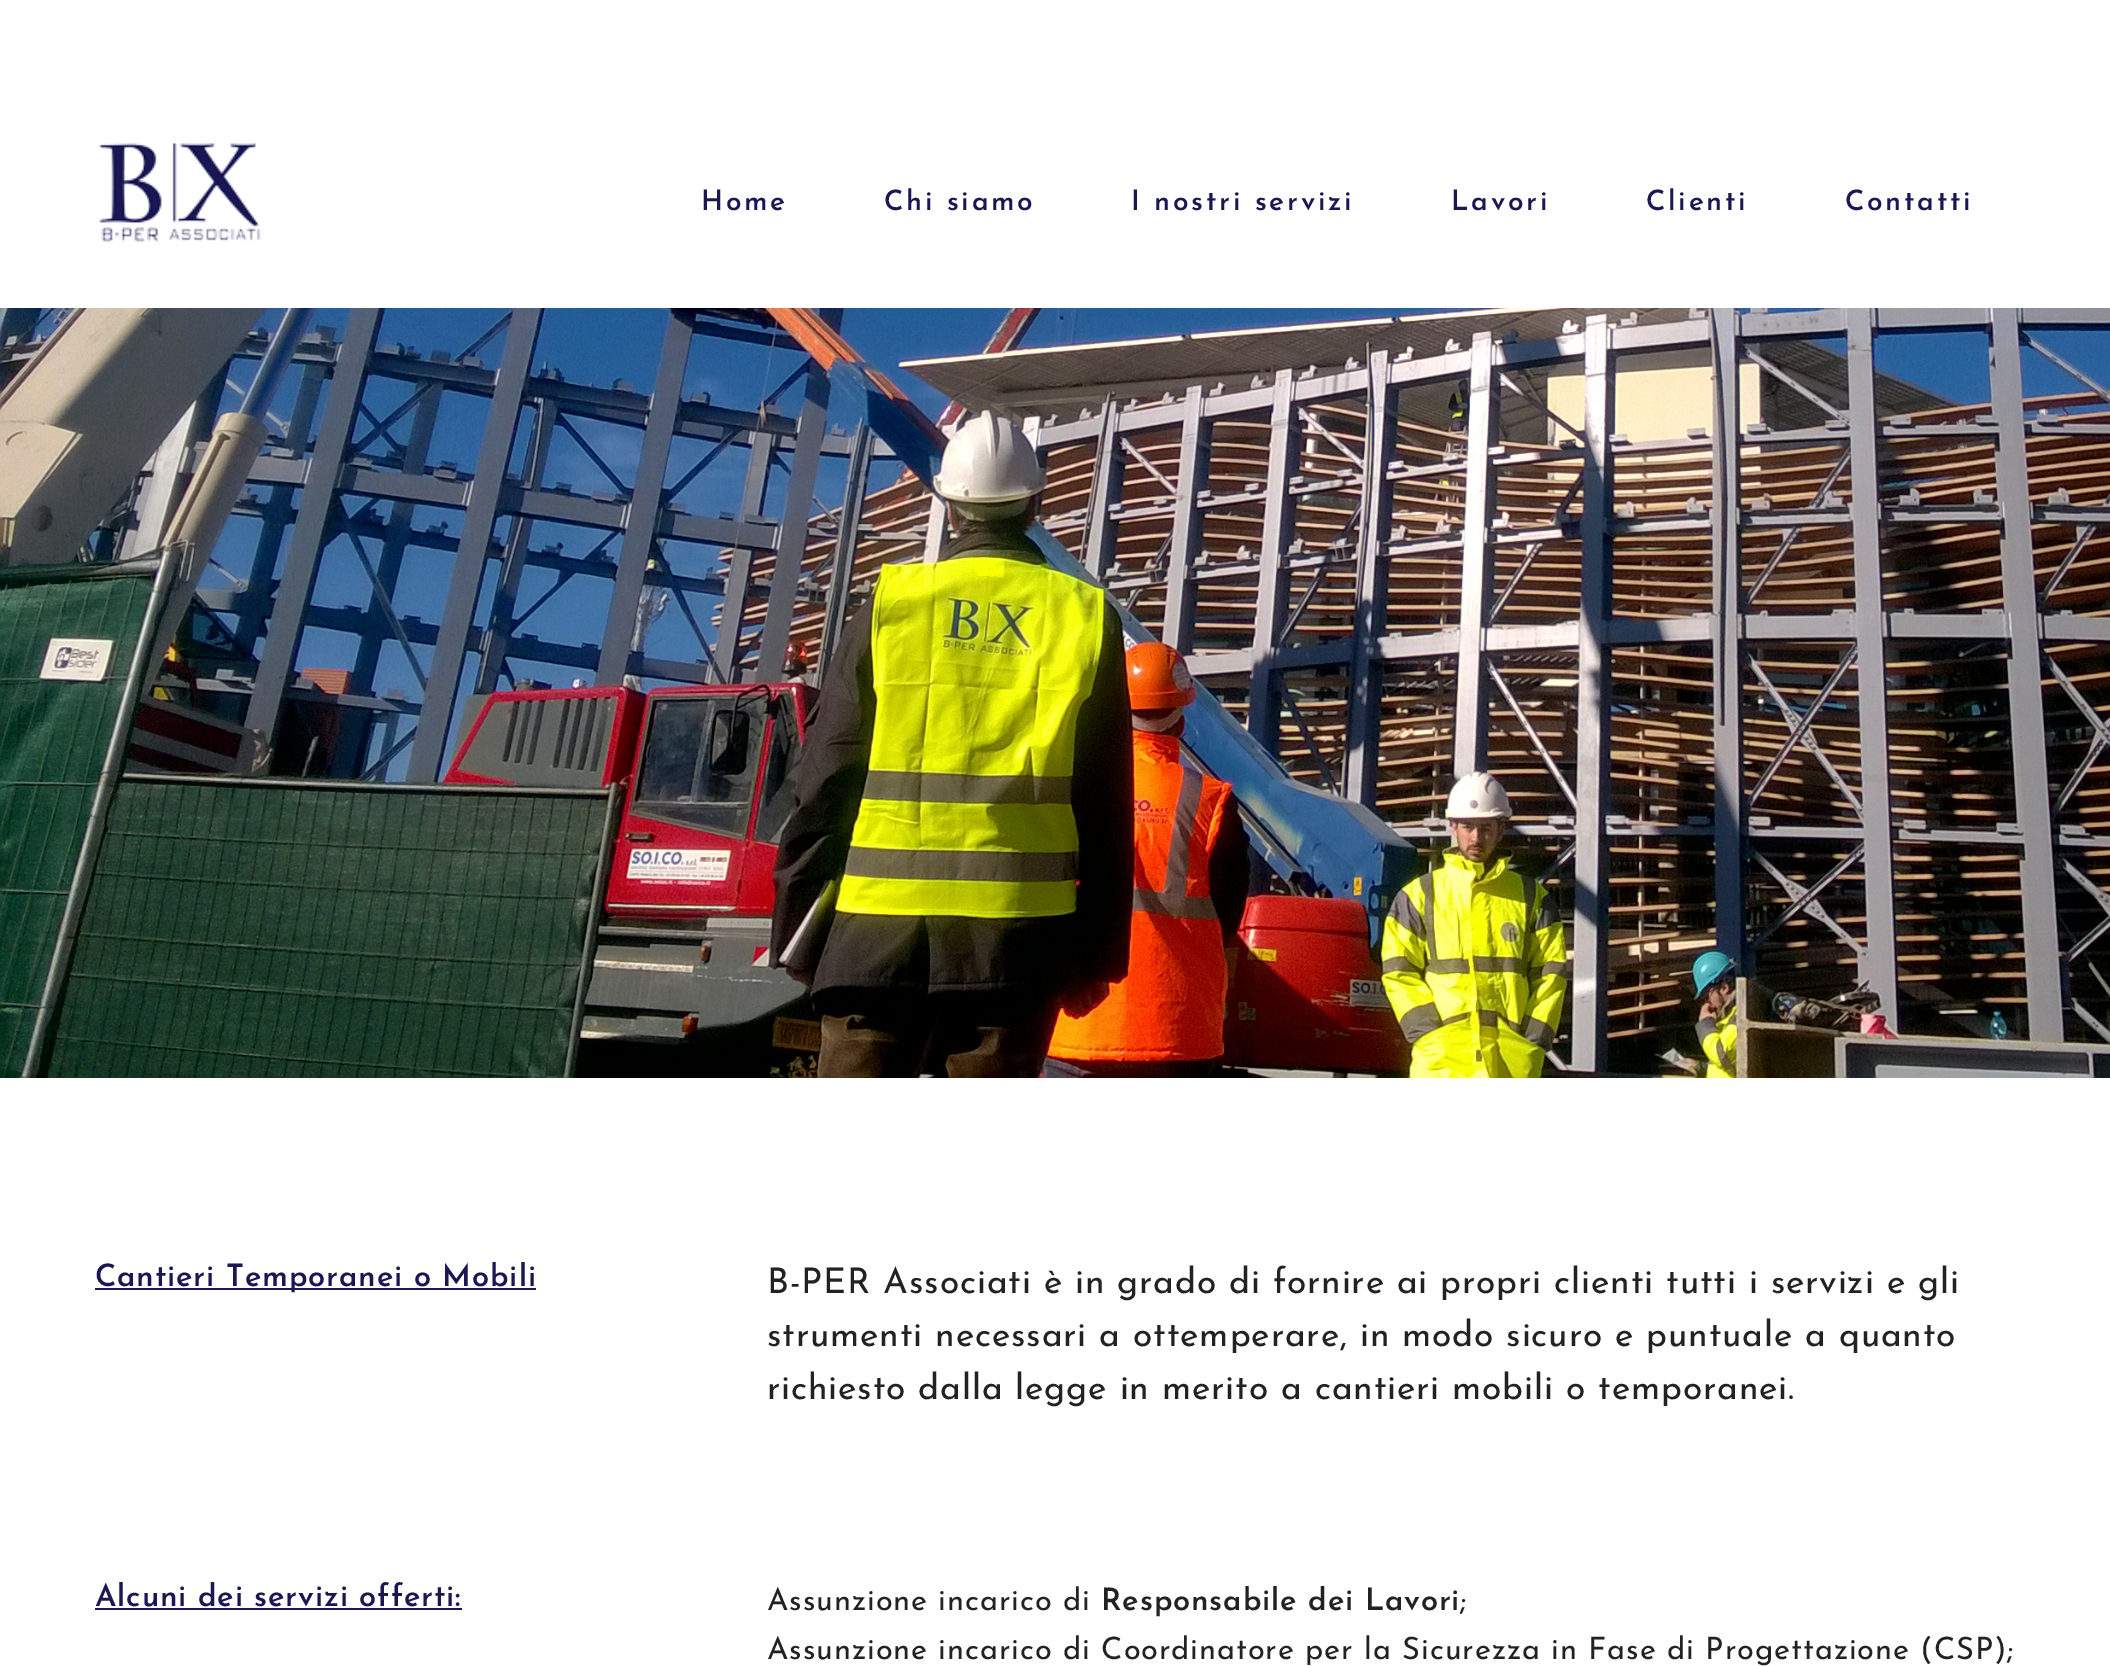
%!PS-Adobe-3.0
%%BoundingBox: 0 0 2110 1666
%%LanguageLevel: 3
%%Pages: 1
%%EndComments
%%BeginProlog
/setink { 3 { 255 div 3 1 roll } repeat setrgbcolor } def
/usefont { [ exch dup neg 0 0 3 -1 roll 0 0 ] selectfont } def
/fillbox { setink rectfill } def
/drawimage { 5 dict begin { /h /w /y /x /name } { exch def } forall
  gsave x y translate w h scale
  w h 8 [w 0 0 h 0 0] name (r) file false 3 colorimage grestore end } def
%%EndProlog
%%BeginSetup
<< /PageSize [2110 1666] >> setpagedevice
%%EndSetup
%%Page: 1 1
0 1666 translate 1 -1 scale
4 setmiterlimit
0 0 2110 1666 255 255 255 fillbox
(assets/img1.rgb) 99 142 162 100 drawimage
/JosefinSans-SemiBold 28 usefont
26 23 84 setink
701 210 moveto 2.75 0 (Home) ashow
884 210 moveto 2.75 0 (Chi siamo) ashow
1131 210 moveto 2.75 0 (I nostri servizi) ashow
1451 210 moveto 2.75 0 (Lavori) ashow
1646 210 moveto 2.75 0 (Clienti) ashow
1845 210 moveto 2.75 0 (Contatti) ashow
(assets/img2.rgb) 0 308 2110 770 drawimage
95 1288 441 2 26 23 84 fillbox
/JosefinSans-SemiBold 30.8 usefont
95 1286 moveto 0.85 0 (Cantieri Temporanei o Mobili) ashow
/JosefinSans-Regular 35.4 usefont
34 34 34 setink
767 1293 moveto 0.85 0 (B-PER Associati è in grado di fornire ai propri clienti tutti i servizi e gli) ashow
767 1346 moveto 0.85 0 (strumenti necessari a ottemperare, in modo sicuro e puntuale a quanto) ashow
767 1399 moveto 0.85 0 (richiesto dalla legge in merito a cantieri mobili o temporanei.) ashow
/JosefinSans-SemiBold 30.8 usefont
26 23 84 setink
95 1606 moveto 0.85 0 (Alcuni dei servizi offerti:) ashow
95 1608 367 2 26 23 84 fillbox
/JosefinSans-Regular 30.8 usefont
34 34 34 setink
767 1610 moveto 0.85 0 (Assunzione incarico di) ashow
/JosefinSans-SemiBold 30.8 usefont
1101 1610 moveto 0.85 0 (Responsabile dei Lavori) ashow
/JosefinSans-Regular 30.8 usefont
1460 1610 moveto 0.85 0 (;) ashow
767 1659 moveto 0.85 0 (Assunzione incarico di Coordinatore per la Sicurezza in Fase di Progettazione \(CSP\);) ashow
showpage
%%EOF
